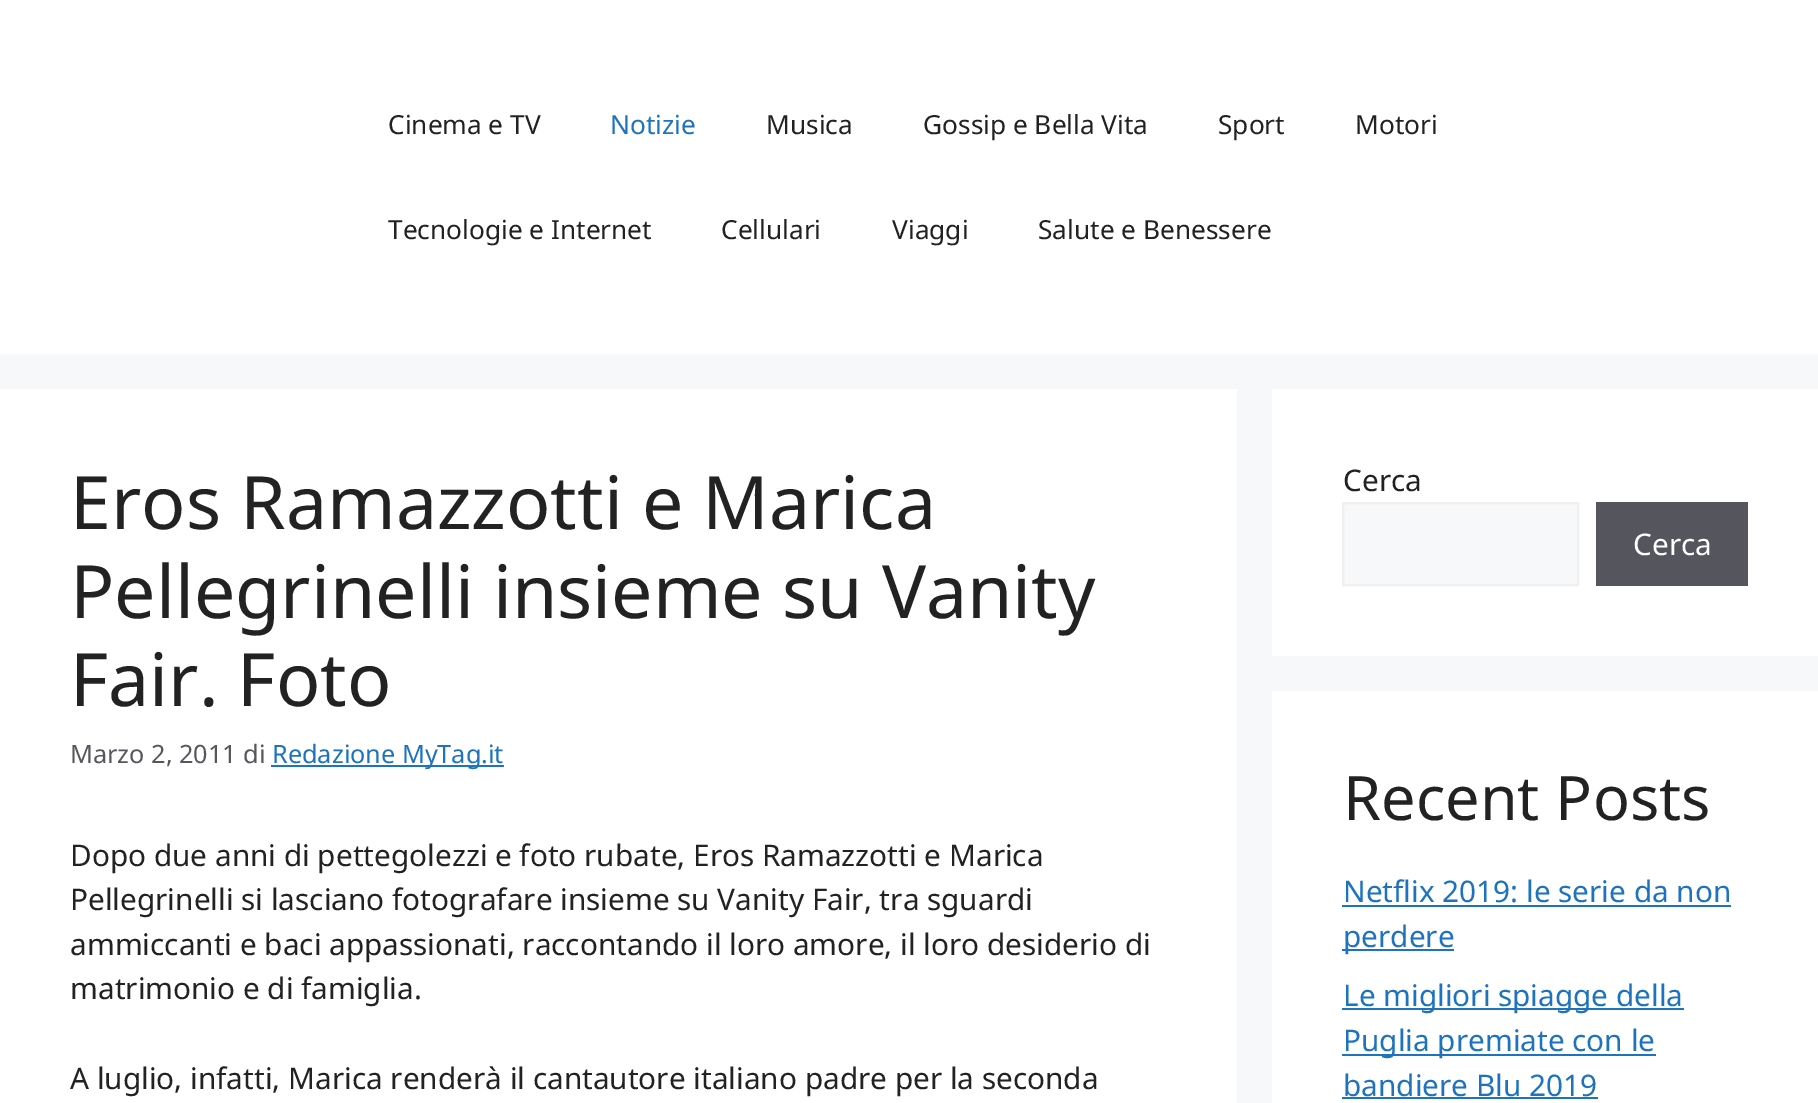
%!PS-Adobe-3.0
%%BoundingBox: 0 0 1818 1103
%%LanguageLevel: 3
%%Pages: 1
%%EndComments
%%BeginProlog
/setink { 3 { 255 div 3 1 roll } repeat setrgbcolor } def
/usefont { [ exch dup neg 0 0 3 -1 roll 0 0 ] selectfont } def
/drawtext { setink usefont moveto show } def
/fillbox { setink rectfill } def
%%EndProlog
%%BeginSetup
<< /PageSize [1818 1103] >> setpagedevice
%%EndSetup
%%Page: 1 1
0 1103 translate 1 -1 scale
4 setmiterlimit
0 0 1818 1103 247 248 249 fillbox
0 0 1818 354 255 255 255 fillbox
(Cinema e TV) 388 134 /NotoSans-Regular 26.25 34 34 34 drawtext
(Notizie) 610 134 /NotoSans-Regular 26.25 30 115 190 drawtext
(Musica) 766 134 /NotoSans-Regular 26.25 34 34 34 drawtext
(Gossip e Bella Vita) 923 134 /NotoSans-Regular 26.25 34 34 34 drawtext
(Sport) 1218 134 /NotoSans-Regular 26.25 34 34 34 drawtext
(Motori) 1355 134 /NotoSans-Regular 26.25 34 34 34 drawtext
(Tecnologie e Internet) 388 239 /NotoSans-Regular 26.25 34 34 34 drawtext
(Cellulari) 721 239 /NotoSans-Regular 26.25 34 34 34 drawtext
(Viaggi) 892 239 /NotoSans-Regular 26.25 34 34 34 drawtext
(Salute e Benessere) 1038 239 /NotoSans-Regular 26.25 34 34 34 drawtext
0 389 1237 714 255 255 255 fillbox
(Eros Ramazzotti e Marica) 70 529 /NotoSans-Regular 73.5 34 34 34 drawtext
(Pellegrinelli insieme su Vanity) 70 618 /NotoSans-Regular 73.5 34 34 34 drawtext
(Fair. Foto) 70 706 /NotoSans-Regular 73.5 34 34 34 drawtext
(Marzo 2, 2011 di) 70 763 /NotoSans-Regular 25.25 87 87 96 drawtext
271 765 233 2 30 115 190 fillbox
(Redazione MyTag.it) 272 763 /NotoSans-Regular 25.25 30 115 190 drawtext
(Dopo due anni di pettegolezzi e foto rubate, Eros Ramazzotti e Marica) 70 866 /NotoSans-Regular 29.75 34 34 34 drawtext
(Pellegrinelli si lasciano fotografare insieme su Vanity Fair, tra sguardi) 70 910 /NotoSans-Regular 29.75 34 34 34 drawtext
(ammiccanti e baci appassionati, raccontando il loro amore, il loro desiderio di) 70 955 /NotoSans-Regular 29.75 34 34 34 drawtext
(matrimonio e di famiglia.) 70 999 /NotoSans-Regular 29.75 34 34 34 drawtext
(A luglio, infatti, Marica renderà il cantautore italiano padre per la seconda) 70 1089 /NotoSans-Regular 29.75 34 34 34 drawtext
1272 389 546 267 255 255 255 fillbox
(Cerca) 1343 491 /NotoSans-Regular 29.75 34 34 34 drawtext
247 248 249 setink
1343 503 moveto 1578 503 lineto 1578 585 lineto 1343 585 lineto closepath gsave fill grestore
240 240 240 setink
2 setlinewidth
stroke
1596 502 152 84 85 85 94 fillbox
(Cerca) 1633 555 /NotoSans-Regular 29.75 255 255 255 drawtext
1272 691 546 412 255 255 255 fillbox
(Recent Posts) 1343 820 /NotoSans-Regular 61.25 34 34 34 drawtext
(Netflix 2019: le serie da non) 1343 902 /NotoSans-Regular 29.75 30 115 190 drawtext
1342 905 389 2 30 115 190 fillbox
1342 949 112 2 30 115 190 fillbox
(perdere) 1343 947 /NotoSans-Regular 29.75 30 115 190 drawtext
1342 1008 342 2 30 115 190 fillbox
(Le migliori spiagge della) 1343 1006 /NotoSans-Regular 29.75 30 115 190 drawtext
1342 1054 314 2 30 115 190 fillbox
(Puglia premiate con le) 1343 1051 /NotoSans-Regular 29.75 30 115 190 drawtext
(bandiere Blu 2019) 1343 1096 /NotoSans-Regular 29.75 30 115 190 drawtext
1342 1097 256 2 30 115 190 fillbox
showpage
%%EOF
